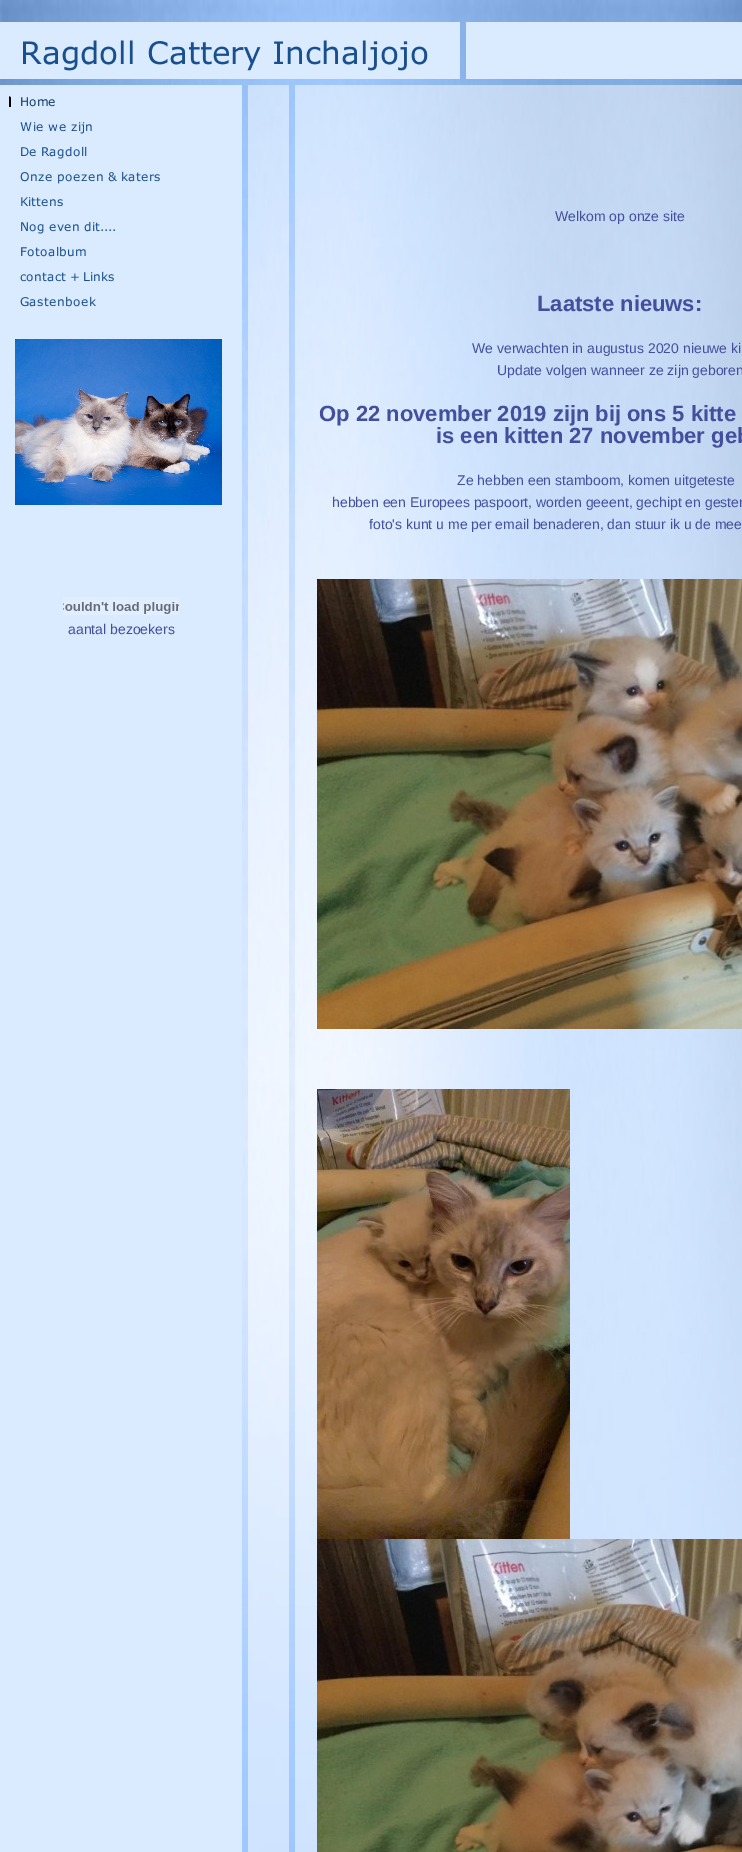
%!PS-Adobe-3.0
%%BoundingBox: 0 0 742 1852
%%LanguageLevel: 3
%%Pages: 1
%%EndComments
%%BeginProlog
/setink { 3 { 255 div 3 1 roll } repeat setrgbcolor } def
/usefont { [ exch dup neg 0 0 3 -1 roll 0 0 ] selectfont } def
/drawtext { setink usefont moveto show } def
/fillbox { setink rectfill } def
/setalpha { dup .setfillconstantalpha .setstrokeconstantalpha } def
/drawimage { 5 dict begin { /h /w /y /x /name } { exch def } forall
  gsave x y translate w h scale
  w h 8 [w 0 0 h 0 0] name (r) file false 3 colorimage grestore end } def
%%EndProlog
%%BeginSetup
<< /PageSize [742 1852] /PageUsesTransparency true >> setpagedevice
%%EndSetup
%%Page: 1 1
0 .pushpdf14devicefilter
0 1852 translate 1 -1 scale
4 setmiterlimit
0 0 742 1852 255 255 255 fillbox
(assets/img1.rgb) 0 0 742 1852 drawimage
0 22 460 57 218 234 255 fillbox
(assets/img2.rgb) 23 40 405 31 drawimage
466 22 276 57 218 234 255 fillbox
0.5 setalpha
248 85 41 1767 255 255 255 fillbox
295 85 447 1767 255 255 255 fillbox
1 setalpha
(Welkom op onze site) 555 221 /LiberationSans-Regular 14 67 79 156 drawtext
(Laatste nieuws:) 537 311 /LiberationSans-Bold 22 67 79 156 drawtext
(We verwachten in augustus 2020 nieuwe ki) 472 353 /LiberationSans-Regular 14 67 79 156 drawtext
(Update volgen wanneer ze zijn geboren) 497 375 /LiberationSans-Regular 14 67 79 156 drawtext
(Op 22 november 2019 zijn bij ons 5 kitte) 319 421 /LiberationSans-Bold 22 67 79 156 drawtext
(is een kitten 27 november geb) 436 443 /LiberationSans-Bold 22 67 79 156 drawtext
(Ze hebben een stamboom, komen uitgeteste) 457 485 /LiberationSans-Regular 14 67 79 156 drawtext
(hebben een Europees paspoort, worden geeent, gechipt en gester) 332 507 /LiberationSans-Regular 14 67 79 156 drawtext
(foto's kunt u me per email benaderen, dan stuur ik u de mee) 369 529 /LiberationSans-Regular 14 67 79 156 drawtext
(assets/img3.rgb) 317 579 425 450 drawimage
(assets/img4.rgb) 317 1089 253 450 drawimage
(assets/img5.rgb) 317 1539 425 313 drawimage
0 85 242 1767 218 234 255 fillbox
(assets/img6.rgb) 9 96 46 11 drawimage
(assets/img7.rgb) 20 122 72 12 drawimage
(assets/img8.rgb) 21 146 66 13 drawimage
(assets/img9.rgb) 20 171 140 13 drawimage
(assets/img10.rgb) 21 197 42 10 drawimage
(assets/img11.rgb) 21 221 94 13 drawimage
(assets/img12.rgb) 21 246 65 11 drawimage
(assets/img13.rgb) 20 271 94 11 drawimage
(assets/img14.rgb) 20 296 76 11 drawimage
(assets/img15.rgb) 15 339 207 166 drawimage
(assets/img16.rgb) 63 597 116 18 drawimage
(aantal bezoekers) 68 634 /LiberationSans-Regular 14 67 79 156 drawtext
.poppdf14devicefilter showpage
%%EOF
